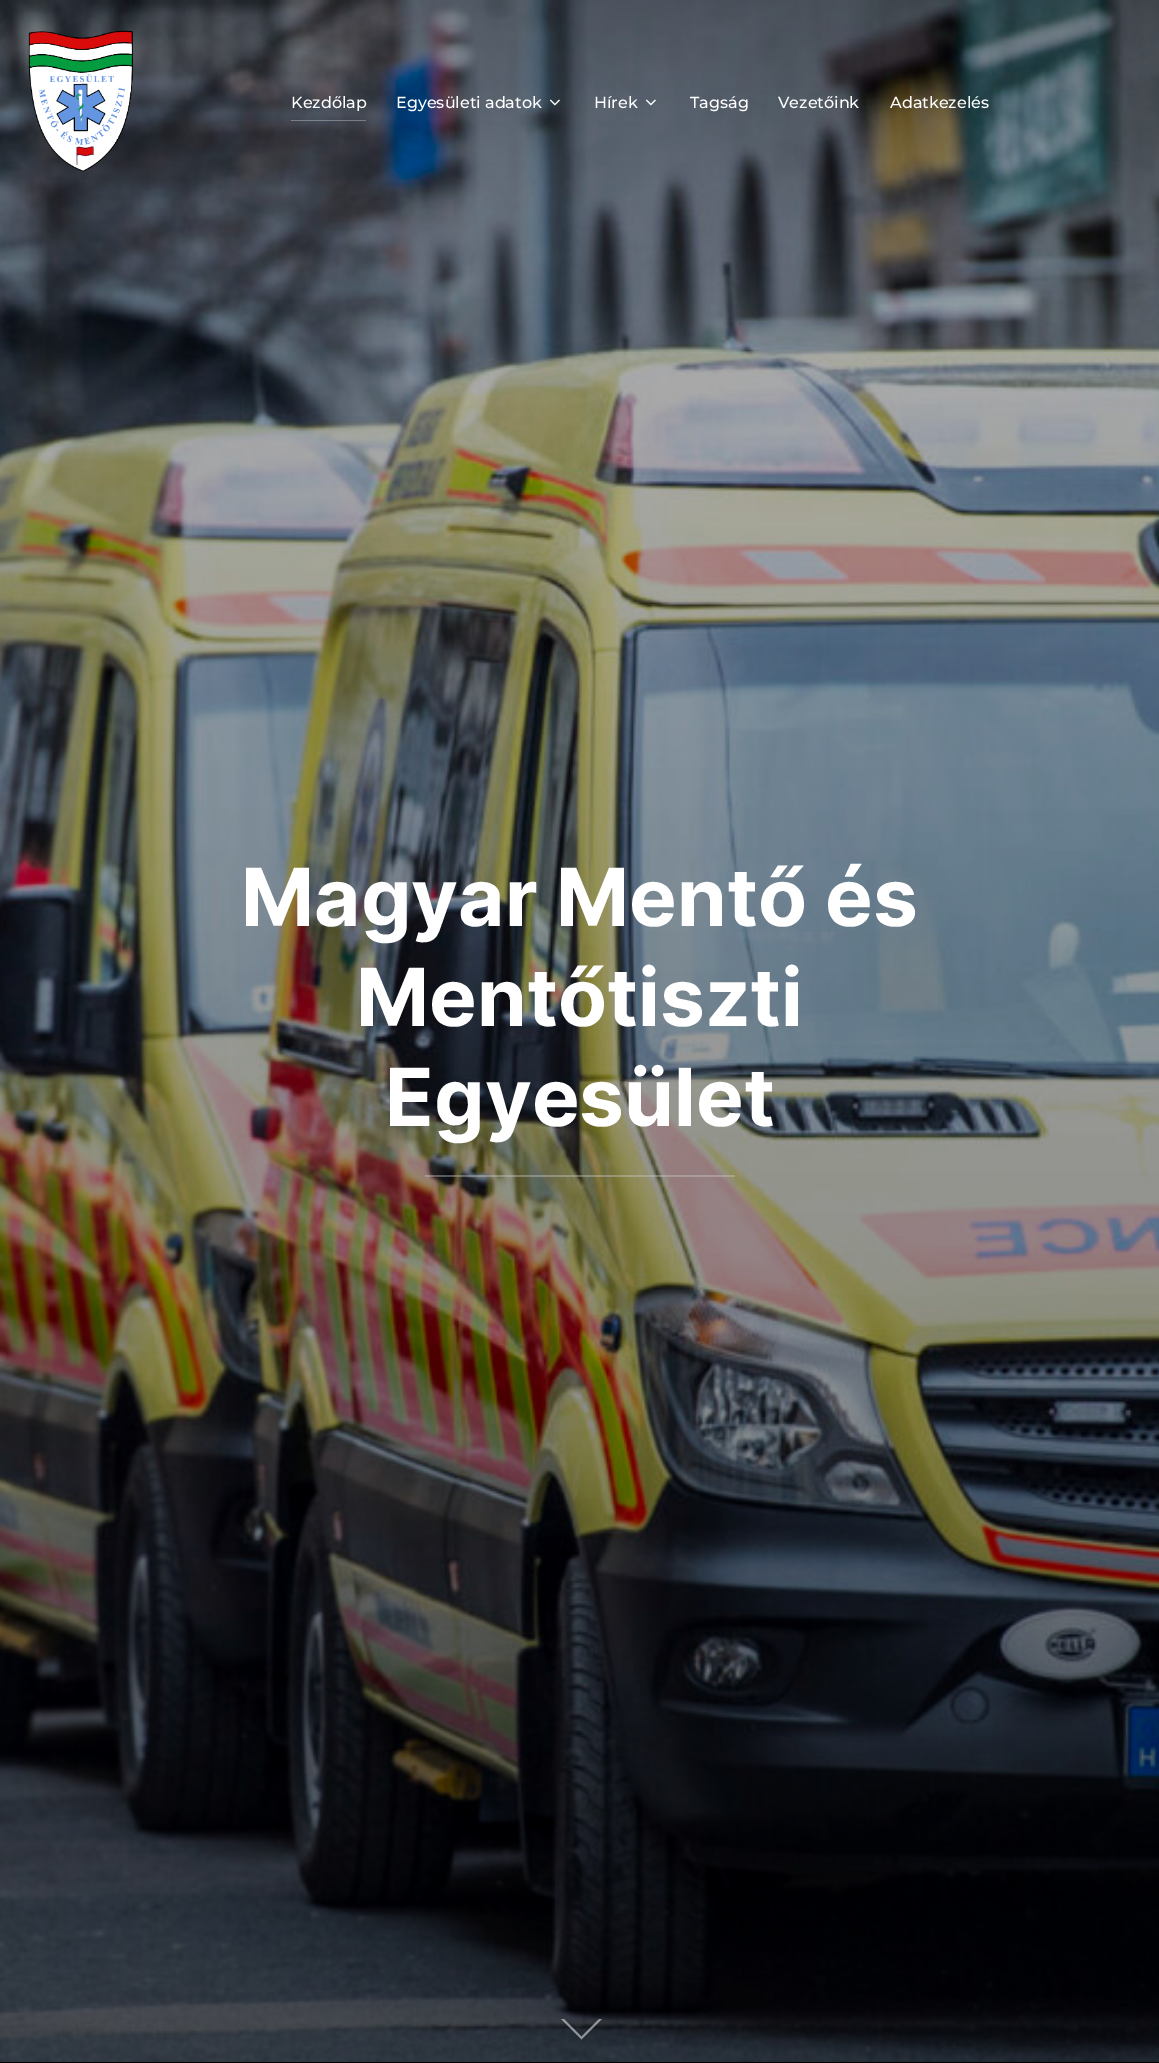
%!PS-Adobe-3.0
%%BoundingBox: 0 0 1159 2063
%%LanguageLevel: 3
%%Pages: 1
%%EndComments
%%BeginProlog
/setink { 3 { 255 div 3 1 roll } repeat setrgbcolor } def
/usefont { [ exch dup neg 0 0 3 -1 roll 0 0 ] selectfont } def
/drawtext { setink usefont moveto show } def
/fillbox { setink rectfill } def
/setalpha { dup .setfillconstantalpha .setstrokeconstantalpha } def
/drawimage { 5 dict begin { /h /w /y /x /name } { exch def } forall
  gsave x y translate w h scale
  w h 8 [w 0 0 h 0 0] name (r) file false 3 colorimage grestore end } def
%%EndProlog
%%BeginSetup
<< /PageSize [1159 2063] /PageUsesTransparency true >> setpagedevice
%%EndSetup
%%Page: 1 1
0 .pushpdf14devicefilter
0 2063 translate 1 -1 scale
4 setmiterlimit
0 0 1159 2063 0 0 0 fillbox
(assets/img4.rgb) 0 0 1159 2062 drawimage
(assets/img1.rgb) 28 30 106 142 drawimage
0.3 setalpha
291 120 75 1 255 255 255 fillbox
1 setalpha
(Kezdőlap) 291 108 /Montserrat-Medium 16 255 255 255 drawtext
(Egyesületi adatok) 396 108 /Montserrat-Medium 16 255 255 255 drawtext
(assets/img2.rgb) 549 99 11 7 drawimage
(Hírek) 594 108 /Montserrat-Medium 16 255 255 255 drawtext
(assets/img3.rgb) 645 99 11 7 drawimage
(Tagság) 690 108 /Montserrat-Medium 16 255 255 255 drawtext
(Vezetőink) 778 108 /Montserrat-Medium 16 255 255 255 drawtext
(Adatkezelés) 890 108 /Montserrat-Medium 16 255 255 255 drawtext
(Magyar Mentő és) 241 926 /Inter-Bold 80 255 255 255 drawtext
(Mentőtiszti) 356 1026 /Inter-Bold 80 255 255 255 drawtext
(Egyesület) 385 1126 /Inter-Bold 80 255 255 255 drawtext
0.4 setalpha
425 1175 310 2 201 201 201 fillbox
gsave
552 2019 56 24 rectclip
0.5 setalpha
255 255 255 setink
2 setlinewidth
581.5 1998 moveto 601.5 2018 lineto 581.5 2038 lineto 561.5 2018 lineto closepath stroke
grestore
.poppdf14devicefilter showpage
%%EOF
